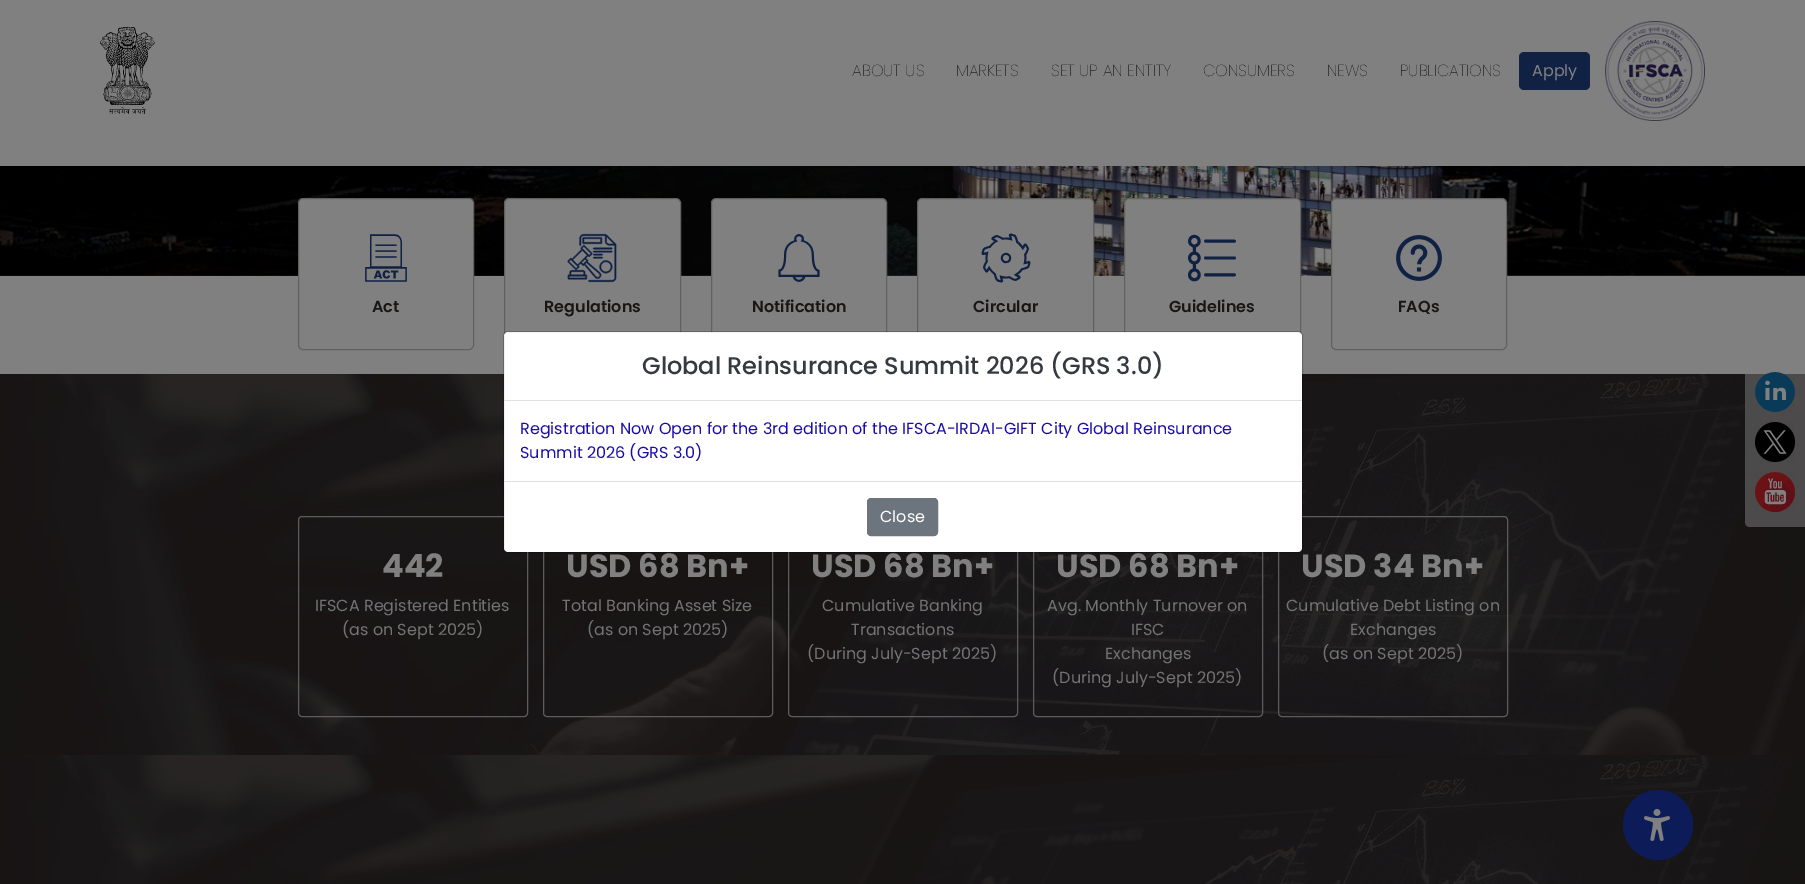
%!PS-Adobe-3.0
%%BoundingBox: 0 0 1805 884
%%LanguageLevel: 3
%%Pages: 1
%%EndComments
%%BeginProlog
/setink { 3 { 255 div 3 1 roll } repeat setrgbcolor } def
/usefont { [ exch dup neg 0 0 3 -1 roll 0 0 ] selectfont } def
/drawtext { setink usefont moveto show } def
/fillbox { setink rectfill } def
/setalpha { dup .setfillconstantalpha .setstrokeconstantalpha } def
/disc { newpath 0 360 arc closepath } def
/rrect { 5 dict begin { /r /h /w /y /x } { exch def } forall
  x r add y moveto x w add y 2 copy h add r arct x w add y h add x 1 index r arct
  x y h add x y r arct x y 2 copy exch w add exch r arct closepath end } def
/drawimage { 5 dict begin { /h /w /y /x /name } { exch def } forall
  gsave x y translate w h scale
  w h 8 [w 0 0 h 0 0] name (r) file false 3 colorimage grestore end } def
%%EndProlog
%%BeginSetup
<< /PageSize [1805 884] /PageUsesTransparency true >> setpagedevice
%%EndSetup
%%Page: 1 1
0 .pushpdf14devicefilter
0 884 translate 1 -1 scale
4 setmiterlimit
0 0 1805 884 128 128 128 fillbox
(assets/img1.rgb) 100 27 55 87 drawimage
(ABOUT US) 852 76 /Poppins-ExtraLight 16 0 0 0 drawtext
(MARKETS) 956 76 /Poppins-ExtraLight 16 0 0 0 drawtext
(SET UP AN ENTITY) 1051 76 /Poppins-ExtraLight 16 0 0 0 drawtext
(CONSUMERS) 1203 76 /Poppins-ExtraLight 16 0 0 0 drawtext
(NEWS) 1327 76 /Poppins-ExtraLight 16 0 0 0 drawtext
(PUBLICATIONS) 1400 76 /Poppins-ExtraLight 16 0 0 0 drawtext
16 33 67 setink
1519 52 71 38 5 rrect fill
(Apply) 1532 76 /Poppins-Regular 16 128 128 128 drawtext
(assets/img2.rgb) 1605 21 100 100 drawimage
(assets/img3.rgb) 0 166 1805 110 drawimage
298.5 198.5 175 151 4.5 rrect gsave fill grestore
97 97 96 setink
stroke
(assets/img4.rgb) 365 234 42 48 drawimage
(Act) 372 312 /Poppins-SemiBold 16 25 23 22 drawtext
128 128 128 setink
504.5 198.5 176 151 4.5 rrect gsave fill grestore
97 97 96 setink
stroke
(assets/img5.rgb) 567 233 50 50 drawimage
(Regulations) 544 312 /Poppins-SemiBold 16 25 23 22 drawtext
128 128 128 setink
711.5 198.5 175 151 4.5 rrect gsave fill grestore
97 97 96 setink
stroke
(assets/img6.rgb) 778 234 42 48 drawimage
(Notification) 752 312 /Poppins-SemiBold 16 25 23 22 drawtext
128 128 128 setink
917.5 198.5 176 151 4.5 rrect gsave fill grestore
97 97 96 setink
stroke
(assets/img7.rgb) 981 233 50 50 drawimage
(Circular) 973 312 /Poppins-SemiBold 16 25 23 22 drawtext
128 128 128 setink
1124.5 198.5 176 151 4.5 rrect gsave fill grestore
97 97 96 setink
stroke
(assets/img8.rgb) 1188 234 48 48 drawimage
(Guidelines) 1169 312 /Poppins-SemiBold 16 25 23 22 drawtext
128 128 128 setink
1331.5 198.5 175 151 4.5 rrect gsave fill grestore
97 97 96 setink
stroke
(assets/img9.rgb) 1396 235 46 46 drawimage
(FAQs) 1398 312 /Poppins-SemiBold 16 25 23 22 drawtext
(assets/img13.rgb) 0 374 1805 510 drawimage
92 92 92 setink
298.5 516.5 229 200 3.5 rrect stroke
543.5 516.5 229 200 3.5 rrect stroke
788.5 516.5 229 200 3.5 rrect stroke
1033.5 516.5 229 200 3.5 rrect stroke
1278.5 516.5 229 200 3.5 rrect stroke
255 255 255 setink
504 332 798 220 4 rrect fill
0.2 setalpha
0 0 0 setink
503.5 331.5 799 221 4.5 rrect stroke
1 setalpha
504 400 798 1 222 226 230 fillbox
(Global Reinsurance Summit 2026 \(GRS 3.0\)) 642 374 /Poppins-Medium 24 52 58 64 drawtext
(Registration Now Open for the 3rd edition of the IFSCA-IRDAI-GIFT City Global Reinsurance) 520 434 /Poppins-Regular 16 26 13 171 drawtext
(Summit 2026 \(GRS 3.0\)) 520 458 /Poppins-Regular 16 26 13 171 drawtext
504 481 798 1 222 226 230 fillbox
108 117 125 setink
867.5 498.5 70 37 3.5 rrect gsave fill grestore
stroke
(Close) 880 522 /Poppins-Regular 16 255 255 255 drawtext
0.5 setalpha
128 128 128 setink
1750 357 moveto 1805 357 lineto 1805 527 lineto 1750 527 lineto 1747 527 1745 525 1745 522 curveto 1745 362 lineto 1745 359 1747 357 1750 357 curveto closepath fill
1 setalpha
(assets/img10.rgb) 1755 372 40 40 drawimage
(assets/img11.rgb) 1755 422 40 40 drawimage
(assets/img12.rgb) 1755 472 40 40 drawimage
(442) 382 577 /Poppins-Bold 32 128 128 128 drawtext
(IFSCA Registered Entities) 315 611 /Poppins-Regular 16 115 115 115 drawtext
(\(as on Sept 2025\)) 342 635 /Poppins-Regular 16 115 115 115 drawtext
(USD 68 Bn+) 566 577 /Poppins-Bold 32 128 128 128 drawtext
(Total Banking Asset Size) 562 611 /Poppins-Regular 16 115 115 115 drawtext
(\(as on Sept 2025\)) 587 635 /Poppins-Regular 16 115 115 115 drawtext
(USD 68 Bn+) 811 577 /Poppins-Bold 32 128 128 128 drawtext
(Cumulative Banking) 822 611 /Poppins-Regular 16 115 115 115 drawtext
(Transactions) 851 635 /Poppins-Regular 16 115 115 115 drawtext
(\(During July-Sept 2025\)) 807 659 /Poppins-Regular 16 115 115 115 drawtext
(USD 68 Bn+) 1056 577 /Poppins-Bold 32 128 128 128 drawtext
(Avg. Monthly Turnover on) 1047 611 /Poppins-Regular 16 115 115 115 drawtext
(IFSC) 1131 635 /Poppins-Regular 16 115 115 115 drawtext
(Exchanges) 1105 659 /Poppins-Regular 16 115 115 115 drawtext
(\(During July-Sept 2025\)) 1052 683 /Poppins-Regular 16 115 115 115 drawtext
(USD 34 Bn+) 1301 577 /Poppins-Bold 32 128 128 128 drawtext
(Cumulative Debt Listing on) 1286 611 /Poppins-Regular 16 115 115 115 drawtext
(Exchanges) 1350 635 /Poppins-Regular 16 115 115 115 drawtext
(\(as on Sept 2025\)) 1322 659 /Poppins-Regular 16 115 115 115 drawtext
13 28 89 setink
1658 825 35 disc fill
(assets/img14.rgb) 1644 809 26 32 drawimage
.poppdf14devicefilter showpage
%%EOF
